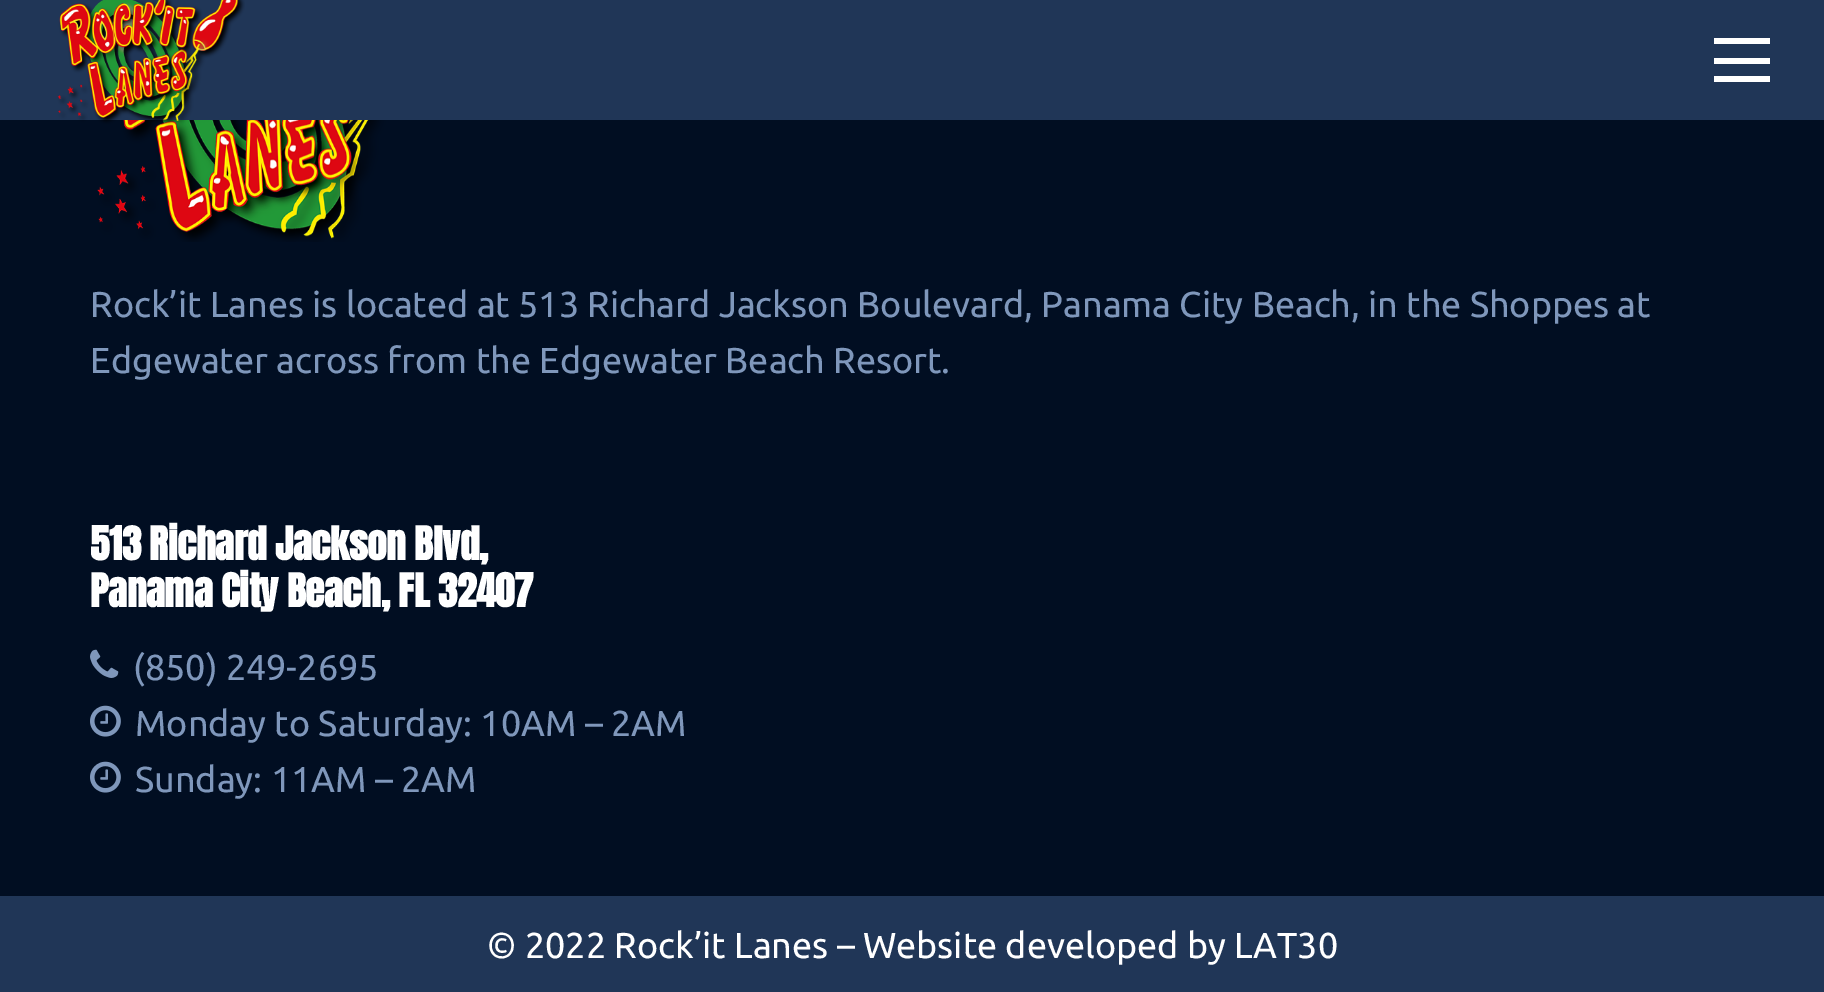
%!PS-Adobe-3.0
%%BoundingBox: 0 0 1824 992
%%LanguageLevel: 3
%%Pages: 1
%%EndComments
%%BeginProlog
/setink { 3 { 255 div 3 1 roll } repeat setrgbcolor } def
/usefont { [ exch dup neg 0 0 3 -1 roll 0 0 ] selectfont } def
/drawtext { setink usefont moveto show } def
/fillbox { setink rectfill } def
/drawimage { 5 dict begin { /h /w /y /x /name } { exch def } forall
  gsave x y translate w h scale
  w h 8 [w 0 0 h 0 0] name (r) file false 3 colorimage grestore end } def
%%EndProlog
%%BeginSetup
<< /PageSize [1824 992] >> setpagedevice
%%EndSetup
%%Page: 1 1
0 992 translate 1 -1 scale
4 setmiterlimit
0 0 1824 992 1 14 34 fillbox
0 0 1824 120 32 54 87 fillbox
(assets/img2.rgb) 97 120 289 122 drawimage
(assets/img1.rgb) 57 0 188 126 drawimage
1714 58 56 6 255 255 255 fillbox
1714 38 56 6 255 255 255 fillbox
1714 76 56 6 255 255 255 fillbox
(Rock’it Lanes is located at 513 Richard Jackson Boulevard, Panama City Beach, in the Shoppes at) 90 317 /Ubuntu-Regular 36 127 151 187 drawtext
(Edgewater across from the Edgewater Beach Resort.) 90 373 /Ubuntu-Regular 36 127 151 187 drawtext
/Anton-Bold 39.25 usefont
255 255 255 setink
90 560 moveto -0.4 0 (513 Richard Jackson Blvd,) ashow
90 607 moveto -0.4 0 (Panama City Beach, FL 32407) ashow
(assets/img3.rgb) 90 649 29 29 drawimage
(\(850\) 249-2695) 133 680 /Ubuntu-Regular 36 127 151 187 drawtext
(assets/img4.rgb) 90 705 31 32 drawimage
(Monday to Saturday: 10AM – 2AM) 135 736 /Ubuntu-Regular 36 127 151 187 drawtext
(assets/img4.rgb) 90 761 31 32 drawimage
(Sunday: 11AM – 2AM) 135 792 /Ubuntu-Regular 36 127 151 187 drawtext
0 896 1824 96 32 54 87 fillbox
(© 2022 Rock’it Lanes – Website developed by LAT30) 487 958 /Ubuntu-Regular 36 255 255 255 drawtext
showpage
%%EOF
